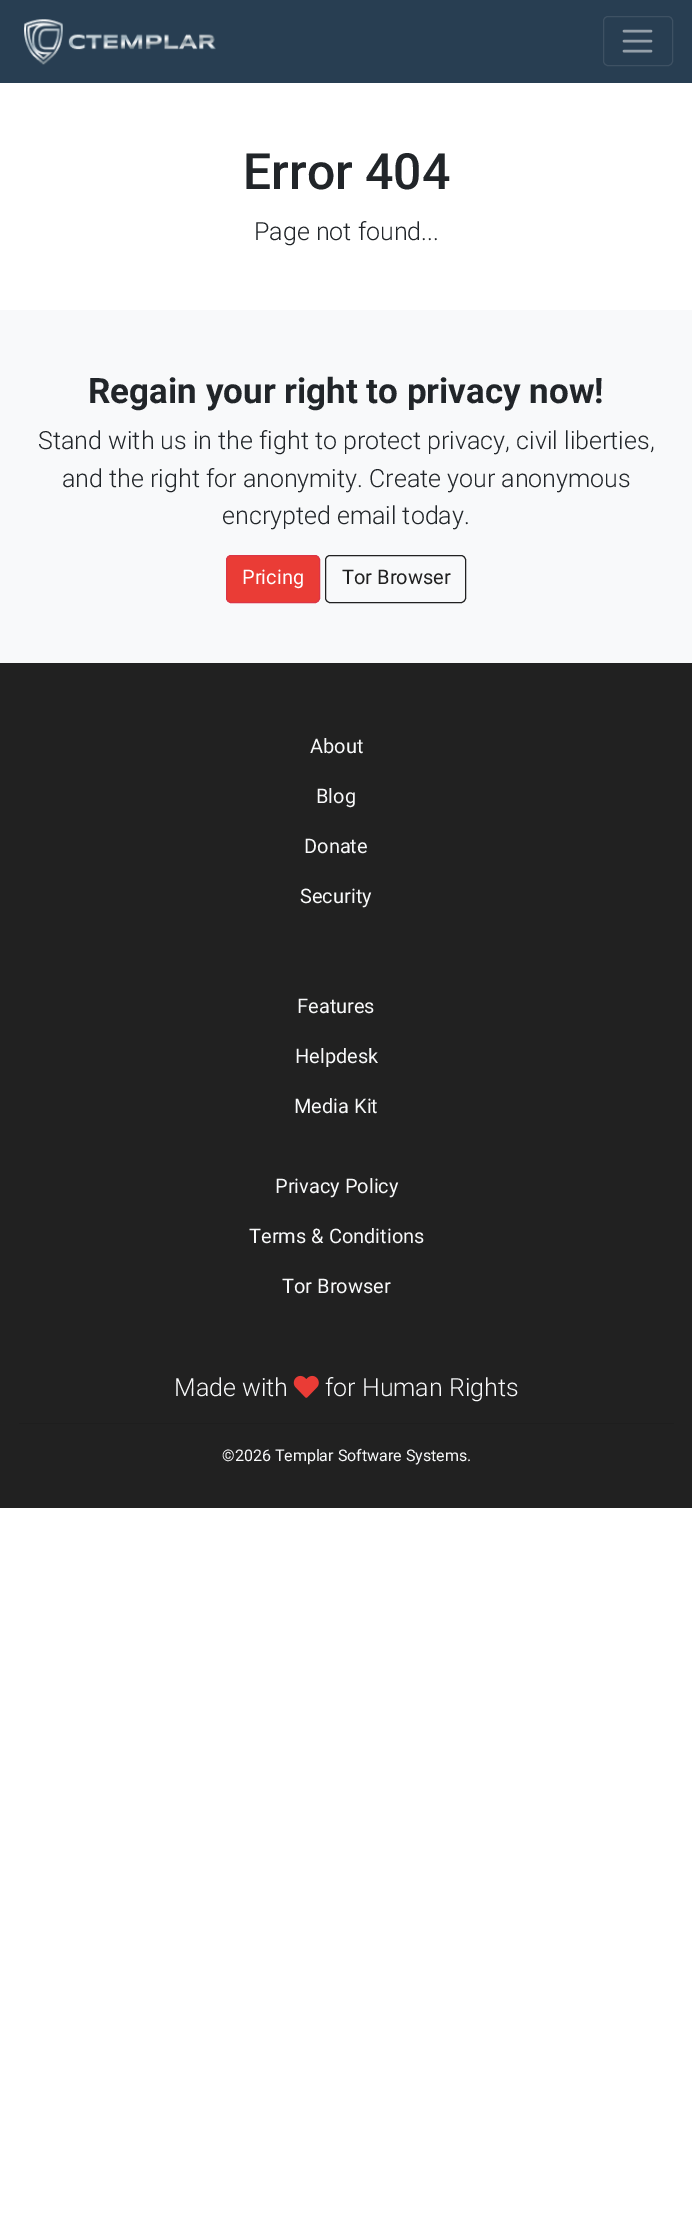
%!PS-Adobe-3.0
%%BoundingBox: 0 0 692 2233
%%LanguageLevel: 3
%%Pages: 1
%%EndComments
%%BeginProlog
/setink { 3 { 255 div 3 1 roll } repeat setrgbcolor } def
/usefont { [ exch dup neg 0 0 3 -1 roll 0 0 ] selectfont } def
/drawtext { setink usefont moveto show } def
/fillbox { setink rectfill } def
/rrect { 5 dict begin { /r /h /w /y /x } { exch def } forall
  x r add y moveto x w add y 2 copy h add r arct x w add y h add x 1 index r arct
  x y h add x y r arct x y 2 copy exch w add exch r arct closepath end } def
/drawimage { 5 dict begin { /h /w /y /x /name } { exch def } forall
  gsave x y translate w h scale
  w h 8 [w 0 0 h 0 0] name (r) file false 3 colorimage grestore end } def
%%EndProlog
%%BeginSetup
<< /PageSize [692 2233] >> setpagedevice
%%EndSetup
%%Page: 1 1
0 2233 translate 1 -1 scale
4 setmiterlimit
0 0 692 2233 255 255 255 fillbox
0 0 692 83 40 62 82 fillbox
(assets/img1.rgb) 24 19 192 46 drawimage
62 81 99 setink
603.5 16.5 69 49 4.5 rrect stroke
148 159 169 setink
2.5 setlinewidth
1 setlinecap
624 31 moveto 651 31 lineto 624 41 moveto 651 41 lineto 624 51 moveto 651 51 lineto stroke
(Error 404) 243 189 /Roboto-Medium 50 33 37 41 drawtext
(Page not found...) 254 240 /Roboto-Light 25 33 37 41 drawtext
0 310 692 353 248 249 250 fillbox
(Regain your right to privacy now!) 88 403 /Roboto-Bold 35 33 37 41 drawtext
(Stand with us in the fight to protect privacy, civil liberties,) 38 449 /Roboto-Light 25 33 37 41 drawtext
(and the right for anonymity. Create your anonymous) 62 487 /Roboto-Light 25 33 37 41 drawtext
(encrypted email today.) 222 524 /Roboto-Light 25 33 37 41 drawtext
234 60 54 setink
226.5 555.5 93 47 4.5 rrect gsave fill grestore
220 53 69 setink
1 setlinewidth
0 setlinecap
stroke
(Pricing) 242 584 /Roboto-Regular 20 255 255 255 drawtext
33 33 33 setink
325.5 555.5 140 47 4.5 rrect stroke
(Tor Browser) 342 584 /Roboto-Regular 20 33 33 33 drawtext
0 663 692 845 33 33 33 fillbox
(About) 310 753 /Roboto-Regular 20 248 249 250 drawtext
(Blog) 316 803 /Roboto-Regular 20 248 249 250 drawtext
(Donate) 304 853 /Roboto-Regular 20 248 249 250 drawtext
(Security) 300 903 /Roboto-Regular 20 248 249 250 drawtext
(Features) 297 1013 /Roboto-Regular 20 248 249 250 drawtext
(Helpdesk) 295 1063 /Roboto-Regular 20 248 249 250 drawtext
(Media Kit) 294 1113 /Roboto-Regular 20 248 249 250 drawtext
(Privacy Policy) 275 1193 /Roboto-Regular 20 248 249 250 drawtext
(Terms & Conditions) 249 1243 /Roboto-Regular 20 248 249 250 drawtext
(Tor Browser) 282 1293 /Roboto-Regular 20 248 249 250 drawtext
(Made with) 174 1396 /Roboto-Light 25 248 249 250 drawtext
(assets/img2.rgb) 293 1375 26 23 drawimage
(for Human Rights) 325 1396 /Roboto-Light 25 248 249 250 drawtext
19 1423 655 1 30 30 30 fillbox
(©2026 Templar Software Systems.) 222 1461 /Roboto-Regular 16 248 249 250 drawtext
showpage
%%EOF
